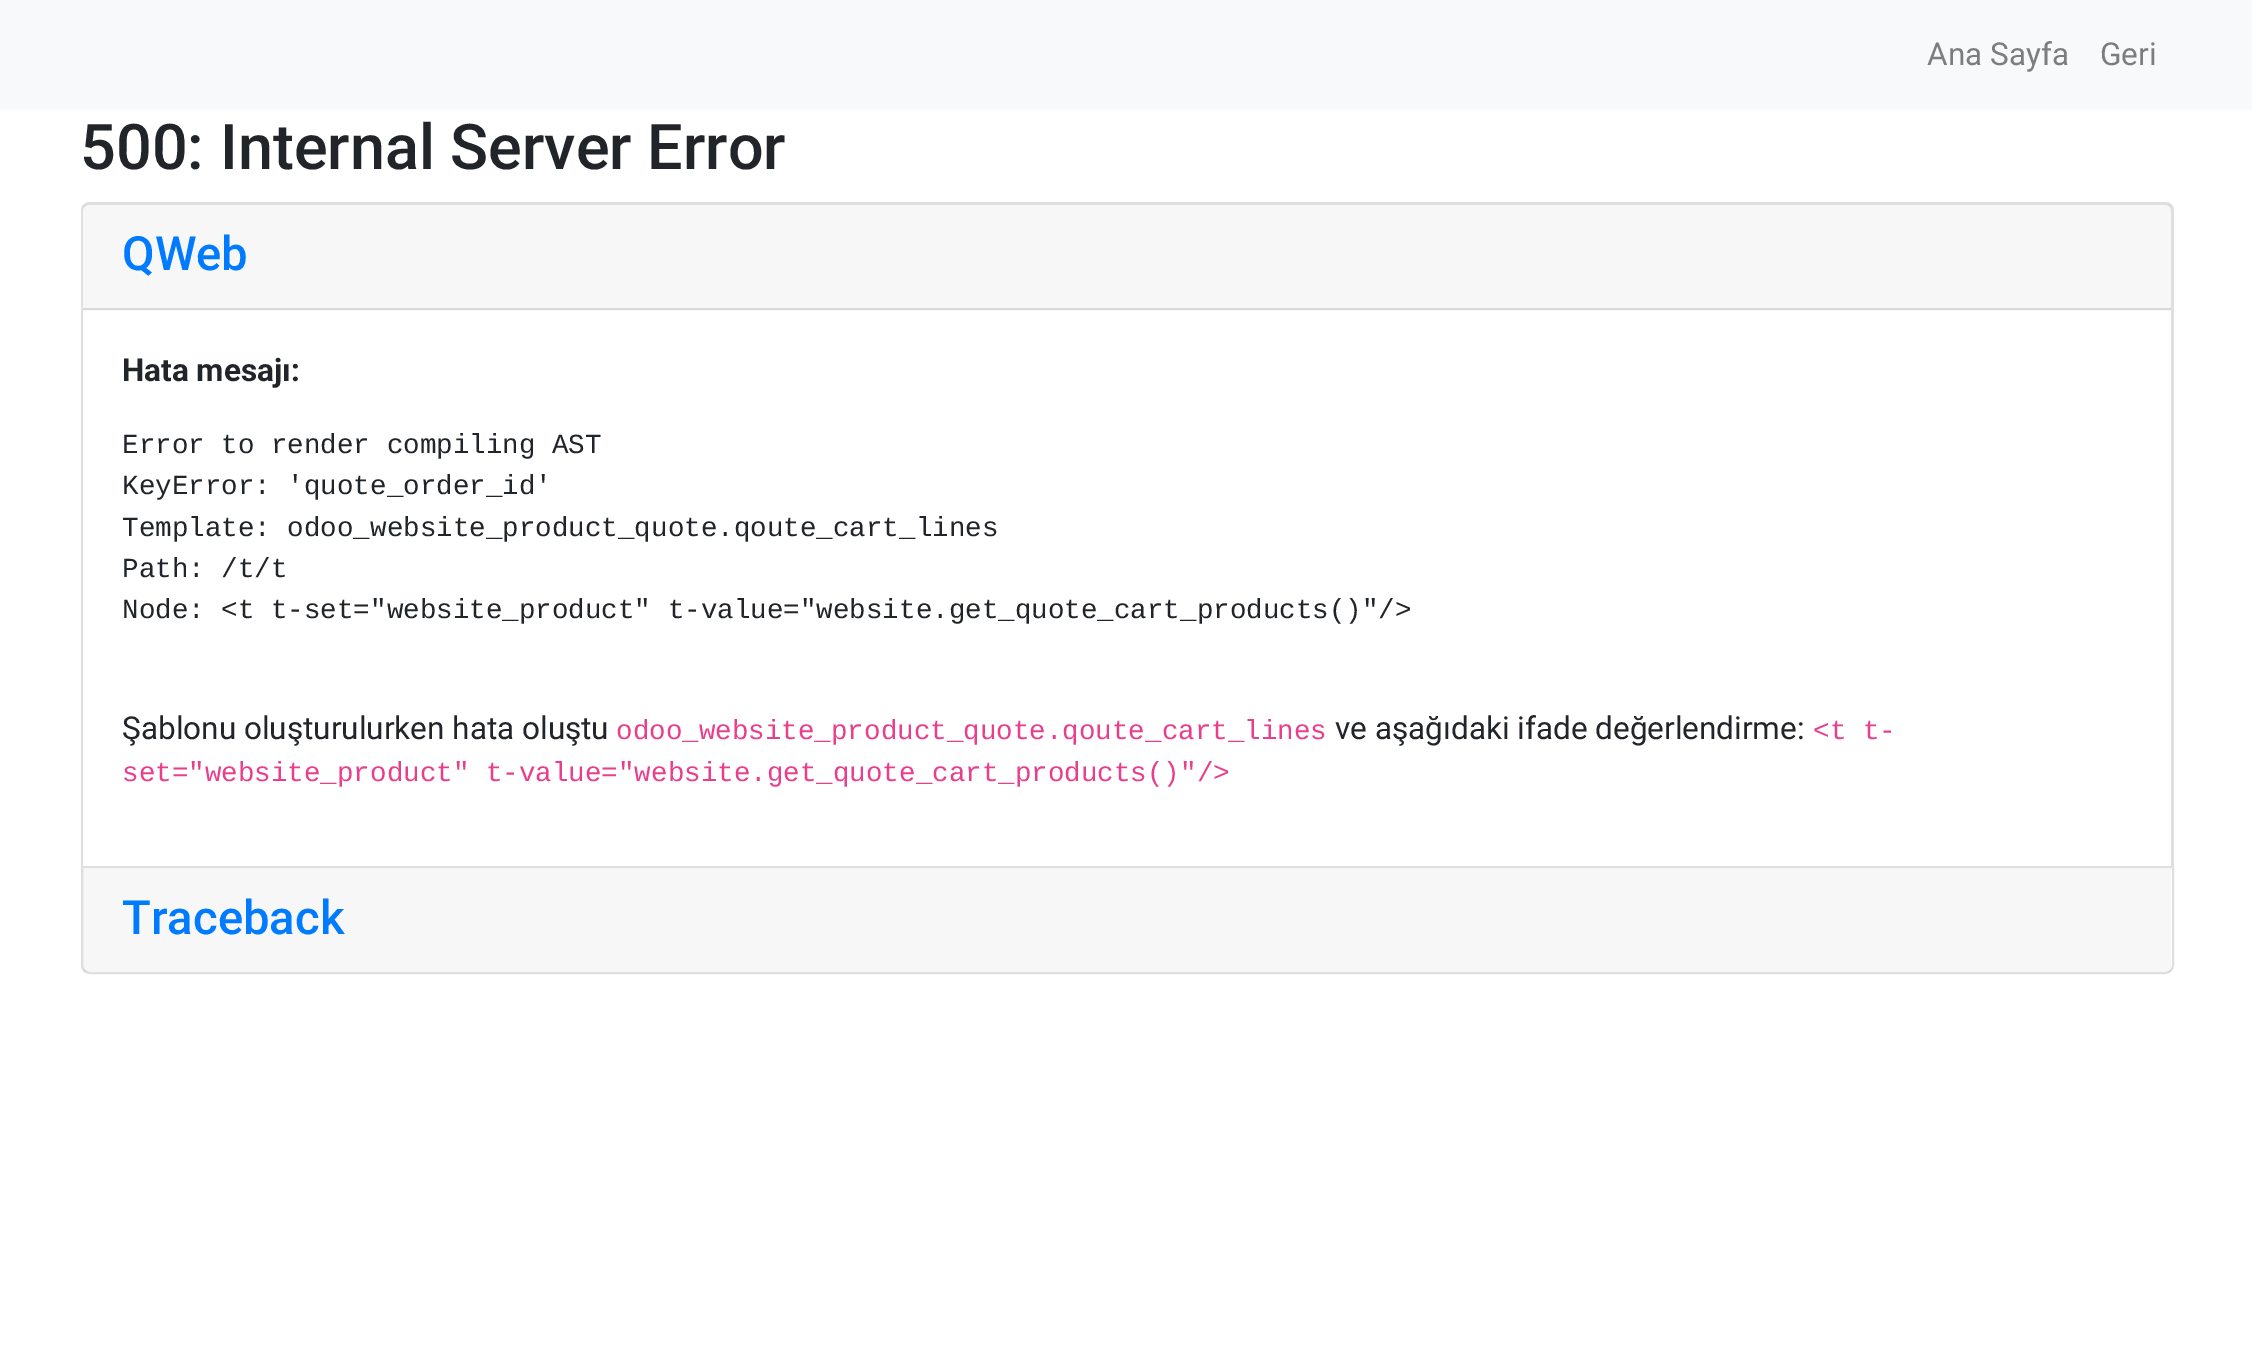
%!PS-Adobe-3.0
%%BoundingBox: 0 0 2252 1360
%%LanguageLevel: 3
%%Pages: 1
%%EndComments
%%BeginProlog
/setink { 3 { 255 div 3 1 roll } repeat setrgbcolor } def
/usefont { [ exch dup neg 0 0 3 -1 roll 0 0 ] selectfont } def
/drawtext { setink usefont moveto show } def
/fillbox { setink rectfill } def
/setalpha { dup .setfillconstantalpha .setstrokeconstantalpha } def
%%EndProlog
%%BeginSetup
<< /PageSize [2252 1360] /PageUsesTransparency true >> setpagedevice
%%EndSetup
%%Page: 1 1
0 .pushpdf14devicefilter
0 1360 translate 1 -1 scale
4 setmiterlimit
0 0 2252 1360 255 255 255 fillbox
0 0 2252 110 248 249 250 fillbox
(Ana Sayfa) 1927 65 /Roboto-Regular 31.5 124 125 125 drawtext
(Geri) 2100 65 /Roboto-Regular 31.5 124 125 125 drawtext
(500: Internal Server Error) 80 169 /Roboto-Medium 63 33 37 41 drawtext
223 223 223 setink
89 202 moveto 2166 202 lineto 2170 202 2174 206 2174 210 curveto 2174 866 lineto 81 866 lineto 81 210 lineto 81 206 85 202 89 202 curveto closepath 89 205 moveto 2166 205 lineto 2169 205 2171 207 2171 210 curveto 2171 866 lineto 83 866 lineto 83 210 lineto 83 207 86 205 89 205 curveto closepath eofill
0.03 setalpha
83 205 2088 106 0 0 0 fillbox
1 setalpha
83 308 2088 2 216 216 216 fillbox
(QWeb) 122 270 /Roboto-Medium 47.25 0 123 255 drawtext
(Hata mesajı:) 122 381 /Roboto-Bold 31.5 33 37 41 drawtext
(Error to render compiling AST) 122 453 /LiberationMono-Regular 27.55 33 37 41 drawtext
(KeyError: 'quote_order_id') 122 494 /LiberationMono-Regular 27.55 33 37 41 drawtext
(Template: odoo_website_product_quote.qoute_cart_lines) 122 536 /LiberationMono-Regular 27.55 33 37 41 drawtext
(Path: /t/t) 122 577 /LiberationMono-Regular 27.55 33 37 41 drawtext
(Node: <t t-set="website_product" t-value="website.get_quote_cart_products\(\)"/>) 122 618 /LiberationMono-Regular 27.55 33 37 41 drawtext
(Şablonu oluşturulurken hata oluştu) 122 739 /Roboto-Regular 31.5 33 37 41 drawtext
(odoo_website_product_quote.qoute_cart_lines) 616 739 /LiberationMono-Regular 27.55 232 62 140 drawtext
(ve aşağıdaki ifade değerlendirme:) 1335 739 /Roboto-Regular 31.5 33 37 41 drawtext
(<t t-) 1813 739 /LiberationMono-Regular 27.55 232 62 140 drawtext
(set="website_product" t-value="website.get_quote_cart_products\(\)"/>) 122 781 /LiberationMono-Regular 27.55 232 62 140 drawtext
223 223 223 setink
2 setlinewidth
82 867 moveto 2173 867 lineto 2173 965 lineto 2173 969.5 2169.5 973 2165 973 curveto 90 973 lineto 85.5 973 82 969.5 82 965 curveto closepath stroke
0.03 setalpha
83 869 2088 103 0 0 0 fillbox
1 setalpha
(Traceback) 122 934 /Roboto-Medium 47.25 0 123 255 drawtext
.poppdf14devicefilter showpage
%%EOF
